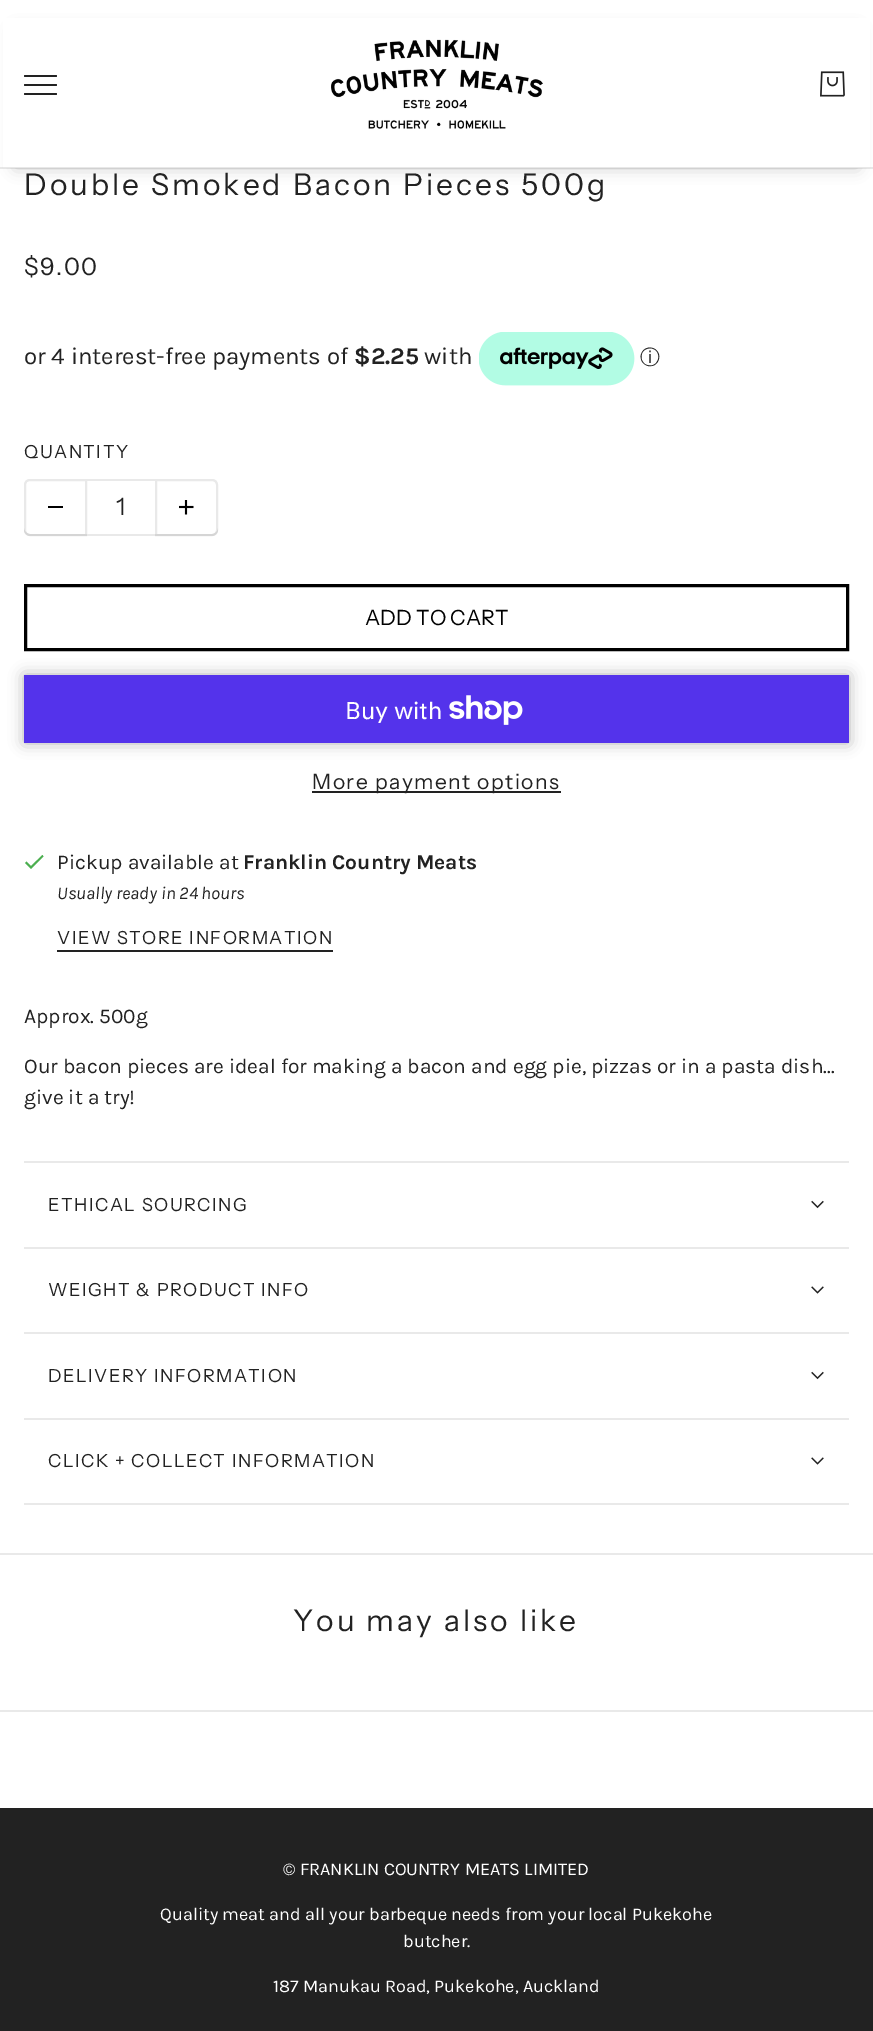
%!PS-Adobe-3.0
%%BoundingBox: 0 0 873 2031
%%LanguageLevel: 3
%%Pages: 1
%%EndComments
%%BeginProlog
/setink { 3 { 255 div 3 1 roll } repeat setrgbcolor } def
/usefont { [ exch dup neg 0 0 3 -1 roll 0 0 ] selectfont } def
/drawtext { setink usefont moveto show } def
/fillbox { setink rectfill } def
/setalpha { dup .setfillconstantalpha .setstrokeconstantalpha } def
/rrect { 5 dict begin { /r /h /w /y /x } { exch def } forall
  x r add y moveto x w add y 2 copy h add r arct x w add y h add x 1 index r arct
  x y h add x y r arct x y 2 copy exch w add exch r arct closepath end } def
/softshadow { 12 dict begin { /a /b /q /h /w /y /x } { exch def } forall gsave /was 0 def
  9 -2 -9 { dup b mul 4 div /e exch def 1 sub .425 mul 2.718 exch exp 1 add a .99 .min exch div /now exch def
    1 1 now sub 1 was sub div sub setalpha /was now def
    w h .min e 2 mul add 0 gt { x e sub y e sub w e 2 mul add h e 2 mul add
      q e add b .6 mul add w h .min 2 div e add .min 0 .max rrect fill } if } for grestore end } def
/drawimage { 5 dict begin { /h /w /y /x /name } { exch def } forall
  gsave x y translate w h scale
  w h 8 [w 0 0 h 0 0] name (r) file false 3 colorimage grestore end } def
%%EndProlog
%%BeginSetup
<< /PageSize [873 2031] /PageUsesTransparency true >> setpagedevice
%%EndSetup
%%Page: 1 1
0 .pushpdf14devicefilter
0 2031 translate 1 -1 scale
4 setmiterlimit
0 0 873 2031 255 255 255 fillbox
0 0 0 setink
15 30 843 138 0 7.5 0.2 softshadow
3 18 867 150 255 255 255 fillbox
34 34 34 setink
24 75 33 2 1 rrect fill
24 84 33 2 1 rrect fill
24 93 33 2 1 rrect fill
(assets/img1.rgb) 331 39 212 90 drawimage
(assets/img2.rgb) 820 71 25 26 drawimage
0.1 setalpha
0 167 873 2 34 34 34 fillbox
/InstrumentSans-Regular 30 usefont
1 setalpha
24 195 moveto 3 0 (Double Smoked Bacon Pieces 500g) ashow
/InstrumentSans-Regular 24 usefont
24 275 moveto 1.5 0 ($9.00) ashow
(or 4 interest-free payments of) 24 364 /Karla-Regular 24 34 34 34 drawtext
($2.25) 354 364 /Karla-Bold 24 34 34 34 drawtext
(with) 424 364 /Karla-Regular 24 34 34 34 drawtext
(assets/img3.rgb) 479 332 156 54 drawimage
(ⓘ) 640 364 /WenQuanYiZenHei-Medium 20 34 34 34 drawtext
/InstrumentSans-Regular 18 usefont
24 458 moveto 1.5 0 (QUANTITY) ashow
233 233 233 setink
2 setlinewidth
30 480 moveto 86 480 lineto 86 535 lineto 30 535 lineto 27 535 25 533 25 530 curveto 25 485 lineto 25 482 27 480 30 480 curveto closepath stroke
0.1 setalpha
34 34 34 setink
24 528 moveto 24 530 lineto 24 533 27 536 30 536 curveto 87 536 lineto 87 534 lineto 30 534 lineto 27 534 24 531 24 528 curveto closepath fill
1 setalpha
48 506 15 2 0 0 0 fillbox
87 479 68 2 233 233 233 fillbox
87 534 68 2 233 233 233 fillbox
(1) 116 515 /InstrumentSans-Regular 24 34 34 34 drawtext
233 233 233 setink
156 480 moveto 212 480 lineto 215 480 217 482 217 485 curveto 217 530 lineto 217 533 215 535 212 535 curveto 156 535 lineto closepath stroke
0.1 setalpha
34 34 34 setink
155 534 moveto 155 536 lineto 212 536 lineto 215 536 218 533 218 530 curveto 218 528 lineto 218 531 215 534 212 534 curveto closepath fill
1 setalpha
(assets/img4.rgb) 179 500 15 15 drawimage
0 0 0 setink
3 setlinewidth
25.5 585.5 822 64 rectstroke
(ADD TO CART) 365 625 /InstrumentSans-Regular 21 0 0 0 drawtext
24 675 825 68 0 7.5 0.3 softshadow
24 675 825 68 84 51 235 fillbox
(Buy with) 345 719 /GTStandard-Regular 24 255 255 255 drawtext
(assets/img5.rgb) 449 695 74 30 drawimage
312 791 249 2 34 34 34 fillbox
/InstrumentSans-Regular 21 usefont
312 789 moveto 1.5 0 (More payment options) ashow
76 175 80 setink
31 866 moveto 26.5 861.5 lineto 25 863 lineto 31 869 lineto 43.5 856.5 lineto 42.5 855 lineto closepath fill
(Pickup available at) 57 869 /Karla-Regular 21 34 34 34 drawtext
(Franklin Country Meats) 243 869 /Karla-Bold 21 34 34 34 drawtext
(Usually ready in 24 hours) 57 899 /Karla-Italic 18 34 34 34 drawtext
/InstrumentSans-Regular 18 usefont
57 944 moveto 1.5 0 (VIEW STORE INFORMATION) ashow
57 950 276 2 34 34 34 fillbox
(Approx. 500g) 24 1023 /Karla-Regular 21 34 34 34 drawtext
(Our bacon pieces are ideal for making a bacon and egg pie, pizzas or in a pasta dish...) 24 1073 /Karla-Regular 21 34 34 34 drawtext
(give it a try!) 24 1104 /Karla-Regular 21 34 34 34 drawtext
24 1161 825 2 233 233 233 fillbox
24 1247 825 2 233 233 233 fillbox
/InstrumentSans-Regular 18 usefont
34 34 34 setink
48 1211 moveto 1.5 0 (ETHICAL SOURCING) ashow
(assets/img6.rgb) 811 1200 13 9 drawimage
24 1332 825 2 233 233 233 fillbox
34 34 34 setink
48 1296 moveto 1.5 0 (WEIGHT & PRODUCT INFO) ashow
(assets/img7.rgb) 811 1286 13 8 drawimage
24 1418 825 2 233 233 233 fillbox
34 34 34 setink
48 1382 moveto 1.5 0 (DELIVERY INFORMATION) ashow
(assets/img6.rgb) 811 1371 13 9 drawimage
24 1503 825 2 233 233 233 fillbox
34 34 34 setink
48 1467 moveto 1.5 0 (CLICK + COLLECT INFORMATION) ashow
(assets/img7.rgb) 811 1457 13 8 drawimage
0 1553 873 2 233 233 233 fillbox
0 1710 873 2 233 233 233 fillbox
/InstrumentSans-Regular 30 usefont
34 34 34 setink
293 1631 moveto 3 0 (You may also like) ashow
0 1808 873 223 34 34 34 fillbox
(© FRANKLIN COUNTRY MEATS LIMITED) 283 1875 /Karla-Regular 18 255 255 255 drawtext
(Quality meat and all your barbeque needs from your local Pukekohe) 160 1920 /Karla-Regular 18 255 255 255 drawtext
(butcher.) 403 1947 /Karla-Regular 18 255 255 255 drawtext
(187 Manukau Road, Pukekohe, Auckland) 273 1992 /Karla-Regular 18 255 255 255 drawtext
.poppdf14devicefilter showpage
%%EOF
